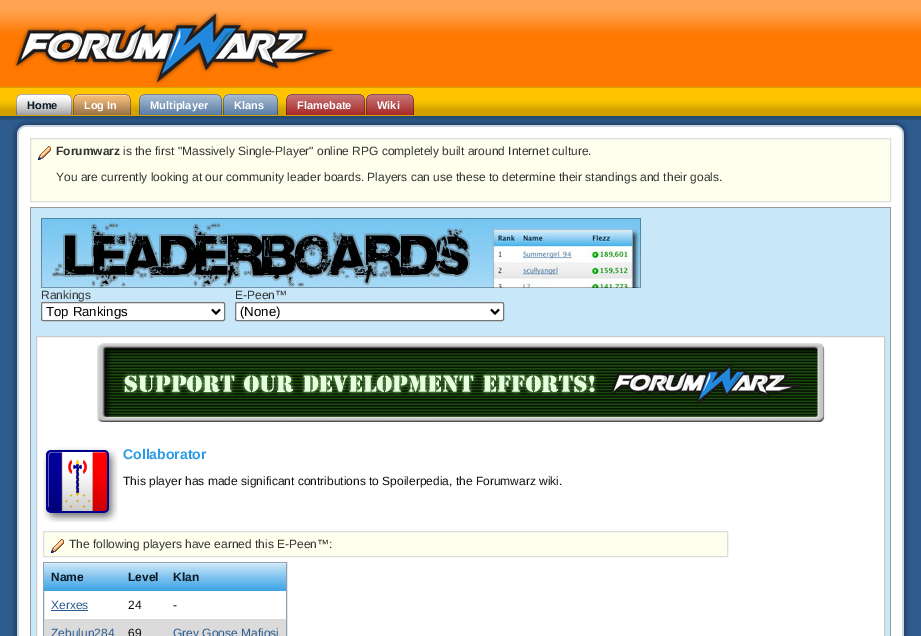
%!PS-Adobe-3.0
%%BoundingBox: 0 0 921 636
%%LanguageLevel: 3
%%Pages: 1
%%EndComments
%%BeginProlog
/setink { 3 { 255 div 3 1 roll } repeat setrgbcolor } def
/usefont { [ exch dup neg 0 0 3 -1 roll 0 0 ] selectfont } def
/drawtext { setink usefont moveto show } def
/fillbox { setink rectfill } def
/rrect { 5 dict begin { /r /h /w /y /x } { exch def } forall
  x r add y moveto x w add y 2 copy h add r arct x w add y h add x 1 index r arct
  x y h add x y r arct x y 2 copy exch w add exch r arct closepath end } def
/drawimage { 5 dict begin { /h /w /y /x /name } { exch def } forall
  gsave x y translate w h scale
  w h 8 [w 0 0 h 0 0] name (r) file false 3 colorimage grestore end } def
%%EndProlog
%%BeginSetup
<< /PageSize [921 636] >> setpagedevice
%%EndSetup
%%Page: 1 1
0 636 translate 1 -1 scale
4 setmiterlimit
0 0 921 636 46 92 143 fillbox
(assets/img1.rgb) 0 0 921 120 drawimage
(assets/img2.rgb) 14 11 320 74 drawimage
(assets/img3.rgb) 16 94 6 21 drawimage
(assets/img4.rgb) 22 94 50 21 drawimage
(Home) 27 109 /LiberationSans-Bold 11 8 26 37 drawtext
(assets/img5.rgb) 73 94 6 21 drawimage
(assets/img6.rgb) 79 94 52 21 drawimage
(Log In) 84 109 /LiberationSans-Bold 11 255 255 255 drawtext
(assets/img7.rgb) 139 94 6 21 drawimage
(assets/img8.rgb) 145 94 78 21 drawimage
(Multiplayer) 150 109 /LiberationSans-Bold 11 255 255 255 drawtext
(assets/img7.rgb) 223 94 6 21 drawimage
(assets/img9.rgb) 229 94 49 21 drawimage
(Klans) 234 109 /LiberationSans-Bold 11 255 255 255 drawtext
(assets/img10.rgb) 286 94 6 21 drawimage
(assets/img11.rgb) 292 94 74 21 drawimage
(Flamebate) 297 109 /LiberationSans-Bold 11 255 255 255 drawtext
(assets/img10.rgb) 366 94 6 21 drawimage
(assets/img12.rgb) 372 94 42 21 drawimage
(Wiki) 377 109 /LiberationSans-Bold 11 255 255 255 drawtext
19 133 883 503 255 255 255 fillbox
(assets/img13.rgb) 10 120 9 516 drawimage
(assets/img14.rgb) 12 120 884 13 drawimage
(assets/img15.rgb) 896 120 15 18 drawimage
(assets/img16.rgb) 902 138 9 498 drawimage
31 139 859 62 255 255 238 fillbox
(assets/img17.rgb) 37 145 15 16 drawimage
221 221 221 setink
30.5 138.5 860 63 rectstroke
(Forumwarz) 56 155 /LiberationSans-Bold 12 51 51 51 drawtext
(is the first "Massively Single-Player" online RPG completely built around Internet culture.) 123 155 /LiberationSans-Regular 12 51 51 51 drawtext
(You are currently looking at our community leader boards. Players can use these to determine their standings and their goals.) 56 181 /LiberationSans-Regular 12 51 51 51 drawtext
31 208 859 428 200 232 249 fillbox
30 207 861 1 153 153 153 fillbox
890 207 1 429 153 153 153 fillbox
30 207 1 429 153 153 153 fillbox
(assets/img18.rgb) 41 218 600 70 drawimage
(Rankings) 41 299 /LiberationSans-Regular 12 51 51 51 drawtext
255 255 255 setink
41.5 302.5 183 18 1.5 rrect gsave fill grestore
118 118 118 setink
stroke
0 0 0 setink
2 setlinewidth
212 309.5 moveto 216 313.5 lineto 220 309.5 lineto stroke
(Top Rankings) 46 316 /LiberationSans-Regular 13.25 0 0 0 drawtext
(E-Peen™) 235 299 /LiberationSans-Regular 12 51 51 51 drawtext
255 255 255 setink
235.5 302.5 268 18 1.5 rrect gsave fill grestore
118 118 118 setink
1 setlinewidth
stroke
0 0 0 setink
2 setlinewidth
491 309.5 moveto 495 313.5 lineto 499 309.5 lineto stroke
(\(None\)) 240 316 /LiberationSans-Regular 13.25 0 0 0 drawtext
255 255 255 setink
36.5 336.5 moveto 884.5 336.5 lineto 884.5 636.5 lineto 36.5 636.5 lineto closepath gsave fill grestore
204 204 204 setink
1 setlinewidth
stroke
(assets/img19.rgb) 97 343 728 79 drawimage
(assets/img20.rgb) 43 447 75 75 drawimage
(Collaborator) 123 459 /LiberationSans-Bold 14 42 155 228 drawtext
(This player has made significant contributions to Spoilerpedia, the Forumwarz wiki.) 123 485 /LiberationSans-Regular 12 17 17 17 drawtext
44 532 683 24 255 255 238 fillbox
(assets/img17.rgb) 50 538 15 16 drawimage
221 221 221 setink
43.5 531.5 684 25 rectstroke
(The following players have earned this E-Peen™:) 69 548 /LiberationSans-Regular 12 51 51 51 drawtext
143 161 172 setink
43.5 562.5 243 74 rectstroke
(assets/img21.rgb) 44 563 77 28 drawimage
(Name) 51 581 /LiberationSans-Bold 12 8 26 37 drawtext
(assets/img22.rgb) 121 563 45 28 drawimage
(Level) 128 581 /LiberationSans-Bold 12 8 26 37 drawtext
(assets/img23.rgb) 166 563 120 28 drawimage
(Klan) 173 581 /LiberationSans-Bold 12 8 26 37 drawtext
(Xerxes) 51 609 /LiberationSans-Regular 12 46 92 143 drawtext
51 610 37 1 46 92 143 fillbox
(24) 128 609 /LiberationSans-Regular 12 17 17 17 drawtext
(-) 173 609 /LiberationSans-Regular 12 17 17 17 drawtext
44 619 242 17 219 219 219 fillbox
(Zebulun284) 51 637 /LiberationSans-Regular 12 46 92 143 drawtext
(69) 128 637 /LiberationSans-Regular 12 17 17 17 drawtext
(Grey Goose Mafiosi) 173 637 /LiberationSans-Regular 12 46 92 143 drawtext
showpage
%%EOF
